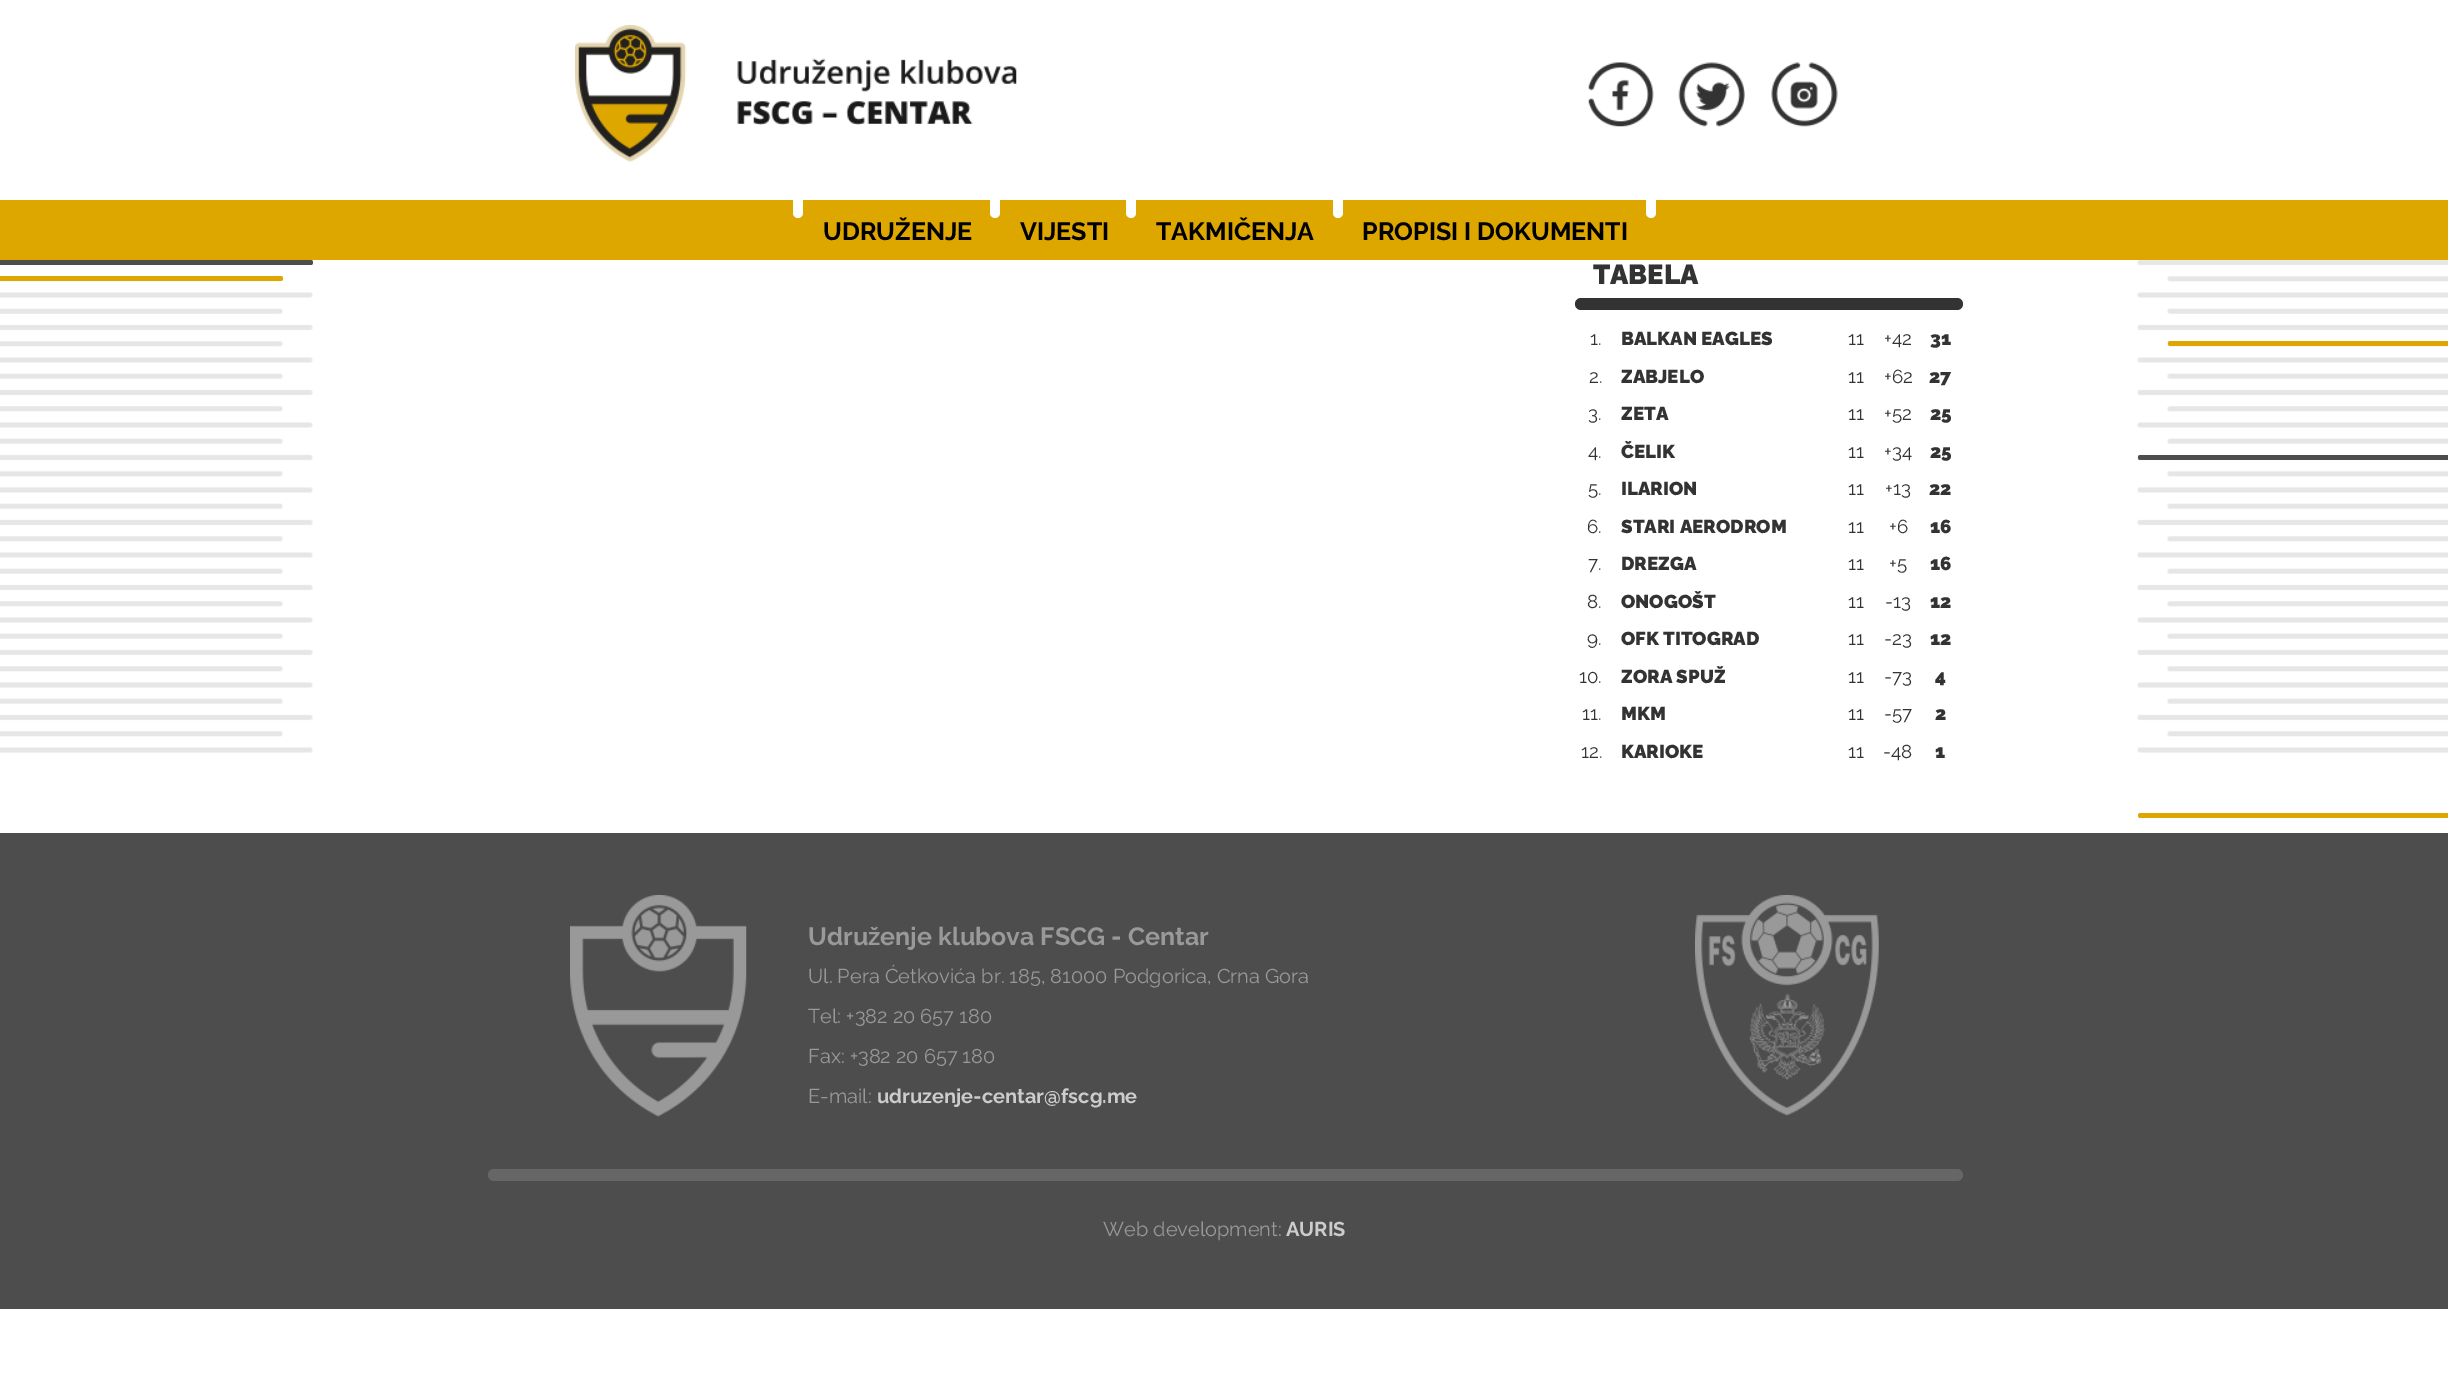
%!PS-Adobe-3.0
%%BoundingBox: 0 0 2448 1392
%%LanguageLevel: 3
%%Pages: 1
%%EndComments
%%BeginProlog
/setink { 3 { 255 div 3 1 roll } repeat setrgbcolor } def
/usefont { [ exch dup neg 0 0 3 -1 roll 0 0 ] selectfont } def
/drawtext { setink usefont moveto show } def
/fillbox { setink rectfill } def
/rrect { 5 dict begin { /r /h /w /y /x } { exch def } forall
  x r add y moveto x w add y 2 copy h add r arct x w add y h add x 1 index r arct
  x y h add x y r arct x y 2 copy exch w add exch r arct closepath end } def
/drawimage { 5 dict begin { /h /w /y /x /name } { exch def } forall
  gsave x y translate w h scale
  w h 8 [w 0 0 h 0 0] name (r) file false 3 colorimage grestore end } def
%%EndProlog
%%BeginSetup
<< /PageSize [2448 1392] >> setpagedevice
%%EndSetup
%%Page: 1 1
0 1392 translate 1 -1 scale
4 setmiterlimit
0 0 2448 1392 255 255 255 fillbox
(assets/img1.rgb) 575 25 112 137 drawimage
(assets/img2.rgb) 737 58 280 67 drawimage
(assets/img3.rgb) 1588 62 66 65 drawimage
(assets/img4.rgb) 1678 62 67 65 drawimage
(assets/img5.rgb) 1771 62 67 65 drawimage
0 200 2448 60 221 167 0 fillbox
255 255 255 setink
793 193 10 25 5 rrect fill
(UDRUŽENJE) 823 240 /Raleway-Bold 25 0 0 0 drawtext
255 255 255 setink
990 193 10 25 5 rrect fill
(VIJESTI) 1020 240 /Raleway-Bold 25 0 0 0 drawtext
255 255 255 setink
1126 193 10 25 5 rrect fill
(TAKMIČENJA) 1156 240 /Raleway-Bold 25 0 0 0 drawtext
255 255 255 setink
1333 193 10 25 5 rrect fill
1646 193 10 25 5 rrect fill
(PROPISI I DOKUMENTI) 1362 240 /Raleway-Bold 25 0 0 0 drawtext
(assets/img6.rgb) 0 260 313 493 drawimage
77 77 77 setink
0 260 moveto 310.5 260 lineto 312 260 313 261 313 262.5 curveto 313 264 312 265 310.5 265 curveto 0 265 lineto closepath fill
221 167 0 setink
0 276 moveto 280.5 276 lineto 282 276 283 277 283 278.5 curveto 283 280 282 281 280.5 281 curveto 0 281 lineto closepath fill
(TABELA) 1593 284 /Raleway-Black 27.5 51 51 51 drawtext
1575 298 388 12 6 rrect fill
(1.) 1590 345 /Raleway-Regular 18.75 51 51 51 drawtext
(BALKAN EAGLES) 1621 345 /Raleway-Black 18.75 51 51 51 drawtext
(11) 1848 345 /Raleway-Regular 18.75 51 51 51 drawtext
(+42) 1884 345 /Raleway-Regular 18.75 51 51 51 drawtext
(31) 1930 345 /Raleway-Black 18.75 51 51 51 drawtext
(2.) 1589 383 /Raleway-Regular 18.75 51 51 51 drawtext
(ZABJELO) 1621 383 /Raleway-Black 18.75 51 51 51 drawtext
(11) 1848 383 /Raleway-Regular 18.75 51 51 51 drawtext
(+62) 1884 383 /Raleway-Regular 18.75 51 51 51 drawtext
(27) 1929 383 /Raleway-Black 18.75 51 51 51 drawtext
(3.) 1588 420 /Raleway-Regular 18.75 51 51 51 drawtext
(ZETA) 1621 420 /Raleway-Black 18.75 51 51 51 drawtext
(11) 1848 420 /Raleway-Regular 18.75 51 51 51 drawtext
(+52) 1884 420 /Raleway-Regular 18.75 51 51 51 drawtext
(25) 1930 420 /Raleway-Black 18.75 51 51 51 drawtext
(4.) 1588 458 /Raleway-Regular 18.75 51 51 51 drawtext
(ČELIK) 1621 458 /Raleway-Black 18.75 51 51 51 drawtext
(11) 1848 458 /Raleway-Regular 18.75 51 51 51 drawtext
(+34) 1884 458 /Raleway-Regular 18.75 51 51 51 drawtext
(25) 1930 458 /Raleway-Black 18.75 51 51 51 drawtext
(5.) 1588 495 /Raleway-Regular 18.75 51 51 51 drawtext
(ILARION) 1621 495 /Raleway-Black 18.75 51 51 51 drawtext
(11) 1848 495 /Raleway-Regular 18.75 51 51 51 drawtext
(+13) 1885 495 /Raleway-Regular 18.75 51 51 51 drawtext
(22) 1929 495 /Raleway-Black 18.75 51 51 51 drawtext
(6.) 1587 533 /Raleway-Regular 18.75 51 51 51 drawtext
(STARI AERODROM) 1621 533 /Raleway-Black 18.75 51 51 51 drawtext
(11) 1848 533 /Raleway-Regular 18.75 51 51 51 drawtext
(+6) 1889 533 /Raleway-Regular 18.75 51 51 51 drawtext
(16) 1930 533 /Raleway-Black 18.75 51 51 51 drawtext
(7.) 1588 570 /Raleway-Regular 18.75 51 51 51 drawtext
(DREZGA) 1621 570 /Raleway-Black 18.75 51 51 51 drawtext
(11) 1848 570 /Raleway-Regular 18.75 51 51 51 drawtext
(+5) 1889 570 /Raleway-Regular 18.75 51 51 51 drawtext
(16) 1930 570 /Raleway-Black 18.75 51 51 51 drawtext
(8.) 1587 608 /Raleway-Regular 18.75 51 51 51 drawtext
(ONOGOŠT) 1621 608 /Raleway-Black 18.75 51 51 51 drawtext
(11) 1848 608 /Raleway-Regular 18.75 51 51 51 drawtext
(-13) 1885 608 /Raleway-Regular 18.75 51 51 51 drawtext
(12) 1930 608 /Raleway-Black 18.75 51 51 51 drawtext
(9.) 1587 645 /Raleway-Regular 18.75 51 51 51 drawtext
(OFK TITOGRAD) 1621 645 /Raleway-Black 18.75 51 51 51 drawtext
(11) 1848 645 /Raleway-Regular 18.75 51 51 51 drawtext
(-23) 1884 645 /Raleway-Regular 18.75 51 51 51 drawtext
(12) 1930 645 /Raleway-Black 18.75 51 51 51 drawtext
(10.) 1579 683 /Raleway-Regular 18.75 51 51 51 drawtext
(ZORA SPUŽ) 1621 683 /Raleway-Black 18.75 51 51 51 drawtext
(11) 1848 683 /Raleway-Regular 18.75 51 51 51 drawtext
(-73) 1884 683 /Raleway-Regular 18.75 51 51 51 drawtext
(4) 1935 683 /Raleway-Black 18.75 51 51 51 drawtext
(11.) 1582 720 /Raleway-Regular 18.75 51 51 51 drawtext
(MKM) 1621 720 /Raleway-Black 18.75 51 51 51 drawtext
(11) 1848 720 /Raleway-Regular 18.75 51 51 51 drawtext
(-57) 1884 720 /Raleway-Regular 18.75 51 51 51 drawtext
(2) 1935 720 /Raleway-Black 18.75 51 51 51 drawtext
(12.) 1581 758 /Raleway-Regular 18.75 51 51 51 drawtext
(KARIOKE) 1621 758 /Raleway-Black 18.75 51 51 51 drawtext
(11) 1848 758 /Raleway-Regular 18.75 51 51 51 drawtext
(-48) 1883 758 /Raleway-Regular 18.75 51 51 51 drawtext
(1) 1935 758 /Raleway-Black 18.75 51 51 51 drawtext
(assets/img7.rgb) 2137 260 311 493 drawimage
221 167 0 setink
2170.5 341 moveto 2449 341 lineto 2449 346 lineto 2170.5 346 lineto 2169 346 2168 345 2168 343.5 curveto 2168 342 2169 341 2170.5 341 curveto closepath fill
77 77 77 setink
2140.5 455 moveto 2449 455 lineto 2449 460 lineto 2140.5 460 lineto 2139 460 2138 459 2138 457.5 curveto 2138 456 2139 455 2140.5 455 curveto closepath fill
221 167 0 setink
2140.5 813 moveto 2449 813 lineto 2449 818 lineto 2140.5 818 lineto 2139 818 2138 817 2138 815.5 curveto 2138 814 2139 813 2140.5 813 curveto closepath fill
0 833 2448 476 77 77 77 fillbox
(assets/img8.rgb) 570 895 177 222 drawimage
(Udruženje klubova FSCG - Centar) 808 945 /Raleway-Bold 25 153 153 153 drawtext
(Ul. Pera Ćetkovića br. 185, 81000 Podgorica, Crna Gora) 808 983 /Raleway-Regular 20 153 153 153 drawtext
(Tel: +382 20 657 180) 808 1023 /Raleway-Regular 20 153 153 153 drawtext
(Fax: +382 20 657 180) 808 1063 /Raleway-Regular 20 153 153 153 drawtext
(E-mail:) 808 1103 /Raleway-Regular 20 153 153 153 drawtext
(udruzenje-centar@fscg.me) 877 1103 /Raleway-Bold 20 204 204 204 drawtext
(assets/img9.rgb) 1695 895 184 221 drawimage
102 102 102 setink
488 1169 1475 12 6 rrect fill
(Web development:) 1103 1236 /Raleway-Regular 20 153 153 153 drawtext
(AURIS) 1286 1236 /Raleway-Bold 20 204 204 204 drawtext
showpage
%%EOF
